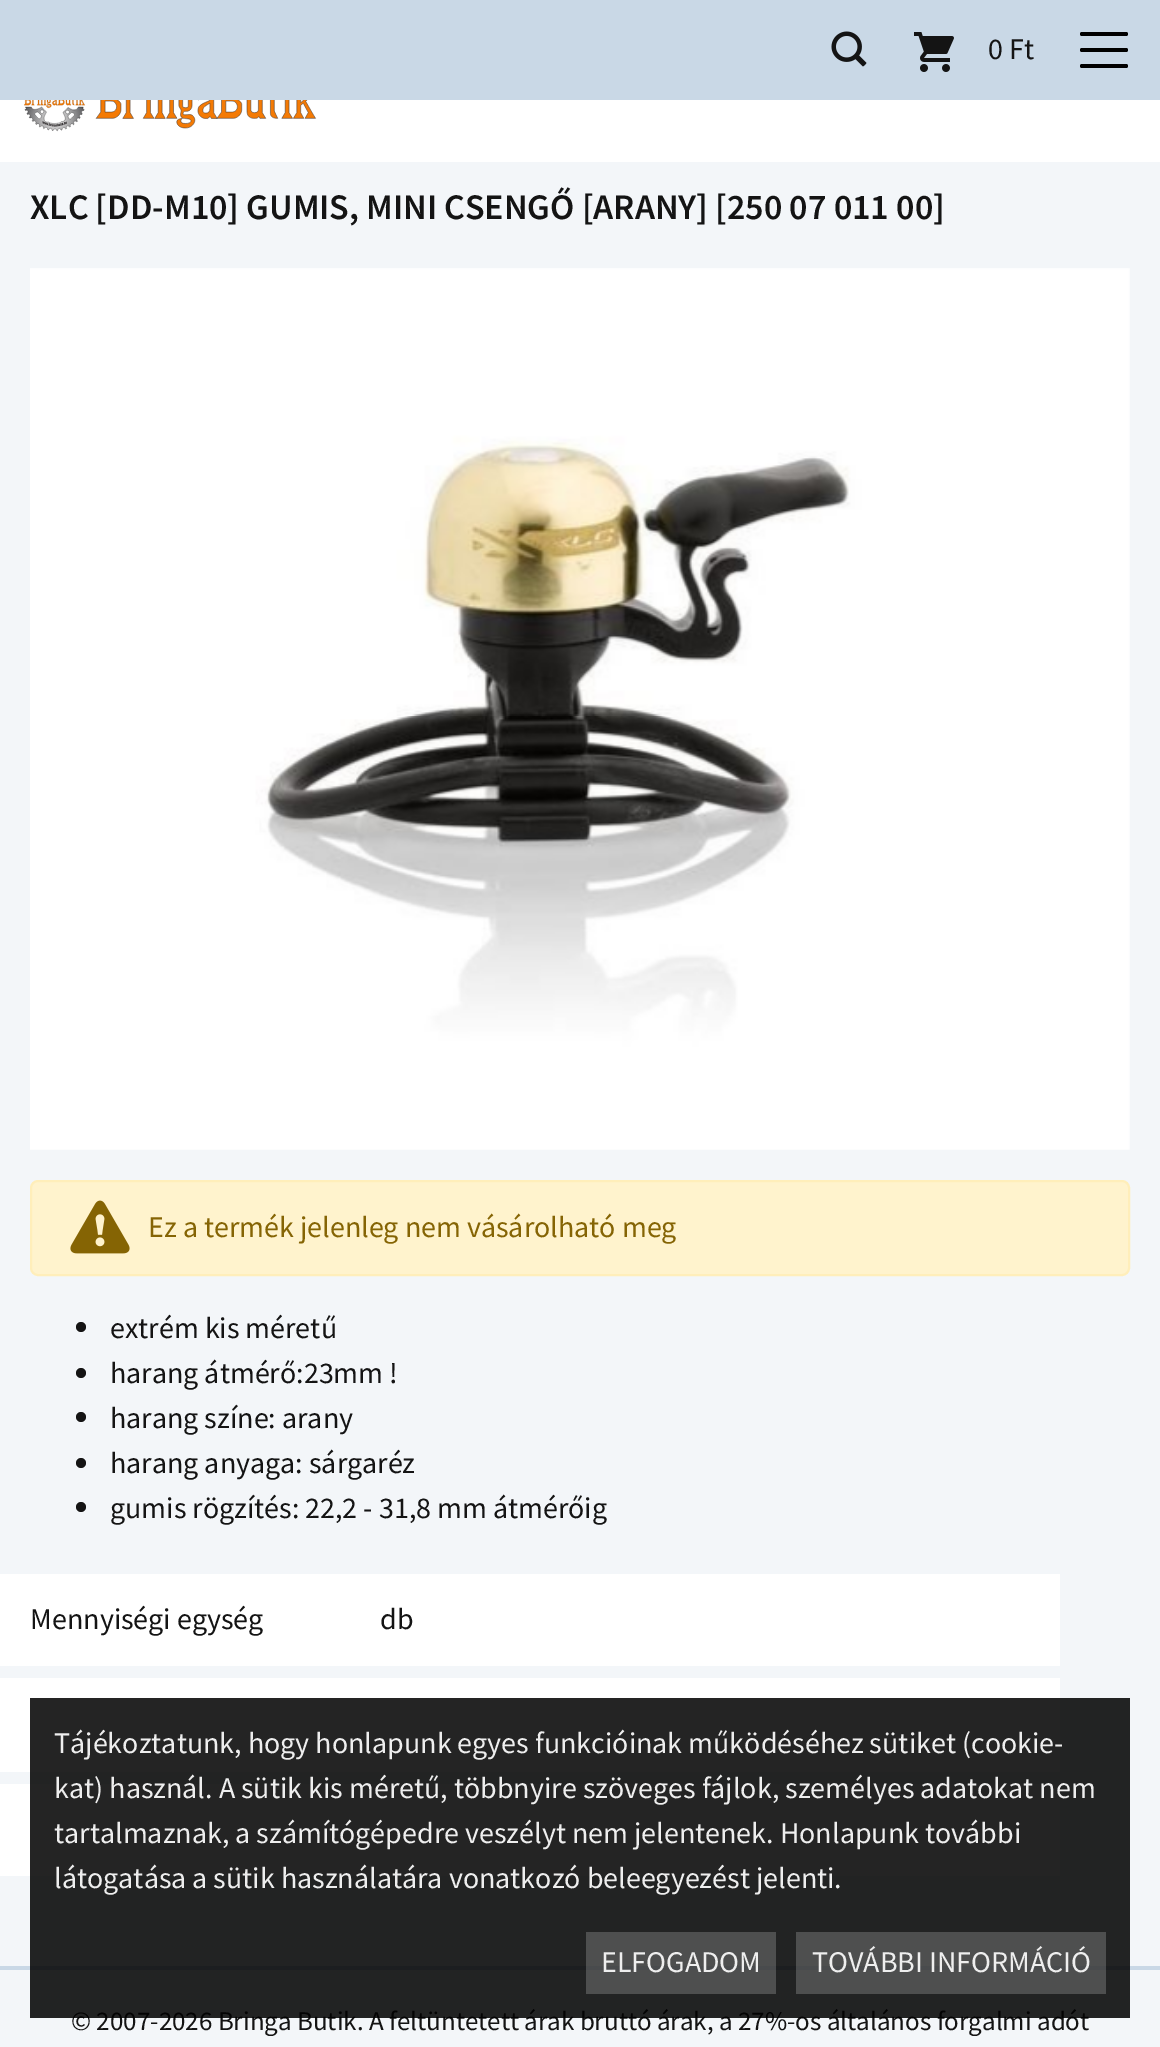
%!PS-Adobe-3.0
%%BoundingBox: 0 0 1160 2047
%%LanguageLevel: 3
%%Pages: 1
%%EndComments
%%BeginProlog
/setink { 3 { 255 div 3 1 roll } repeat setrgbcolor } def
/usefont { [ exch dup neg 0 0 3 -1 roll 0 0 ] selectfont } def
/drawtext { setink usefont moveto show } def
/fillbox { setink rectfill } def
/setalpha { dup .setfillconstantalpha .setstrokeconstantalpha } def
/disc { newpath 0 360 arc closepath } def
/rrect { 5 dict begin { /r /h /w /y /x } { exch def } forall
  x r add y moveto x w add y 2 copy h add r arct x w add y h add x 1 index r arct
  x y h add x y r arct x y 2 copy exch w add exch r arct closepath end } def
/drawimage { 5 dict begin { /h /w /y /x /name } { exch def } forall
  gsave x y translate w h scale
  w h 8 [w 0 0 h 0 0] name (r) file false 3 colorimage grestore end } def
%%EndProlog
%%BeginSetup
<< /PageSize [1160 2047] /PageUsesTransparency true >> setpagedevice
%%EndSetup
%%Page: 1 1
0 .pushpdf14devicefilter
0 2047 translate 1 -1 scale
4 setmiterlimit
0 0 1160 2047 243 246 249 fillbox
0 0 1160 100 201 216 230 fillbox
(assets/img1.rgb) 831 31 36 36 drawimage
(assets/img2.rgb) 914 32 40 40 drawimage
(0 Ft) 988 59 /SourceSansPro-Regular 30 20 20 20 drawtext
0 0 0 setink
1080 32 48 4 2 rrect fill
1080 48 48 4 2 rrect fill
1080 64 48 4 2 rrect fill
0 100 1160 62 255 255 255 fillbox
(assets/img3.rgb) 24 100 293 32 drawimage
(XLC [DD-M10] GUMIS, MINI CSENGŐ [ARANY] [250 07 011 00]) 30 219 /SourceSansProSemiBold-SemiBold 36 20 20 20 drawtext
(assets/img4.rgb) 30 268 1100 882 drawimage
255 243 205 setink
31 1181 1098 94 7 rrect gsave fill grestore
255 238 186 setink
2 setlinewidth
stroke
(assets/img5.rgb) 70 1200 60 54 drawimage
(Ez a termék jelenleg nem vásárolható meg) 148 1237 /SourceSansPro-Regular 30 133 100 4 drawtext
20 20 20 setink
81 1327 5 disc fill
(extrém kis méretű) 110 1338 /SourceSansPro-Regular 30 20 20 20 drawtext
81 1373 5 disc fill
(harang átmérő:23mm !) 110 1383 /SourceSansPro-Regular 30 20 20 20 drawtext
81 1417 5 disc fill
(harang színe: arany) 110 1428 /SourceSansPro-Regular 30 20 20 20 drawtext
81 1463 5 disc fill
(harang anyaga: sárgaréz) 110 1473 /SourceSansPro-Regular 30 20 20 20 drawtext
81 1507 5 disc fill
(gumis rögzítés: 22,2 - 31,8 mm átmérőig) 110 1518 /SourceSansPro-Regular 30 20 20 20 drawtext
0 1574 1060 92 255 255 255 fillbox
(Mennyiségi egység) 30 1629 /SourceSansPro-Regular 30 20 20 20 drawtext
(db) 380 1629 /SourceSansPro-Regular 30 20 20 20 drawtext
0 1678 1060 94 255 255 255 fillbox
0 1784 1060 92 255 255 255 fillbox
0 1966 1160 4 201 216 230 fillbox
(© 2007-2026 Bringa Butik. A feltüntetett árak bruttó árak, a 27%-os általános forgalmi adót) 71 2030 /SourceSansPro-Regular 27 20 20 20 drawtext
0.86 setalpha
30 1698 1100 320 0 0 0 fillbox
1 setalpha
(Tájékoztatunk, hogy honlapunk egyes funkcióinak működéséhez sütiket \(cookie-) 54 1753 /SourceSansPro-Regular 30 238 238 238 drawtext
(kat\) használ. A sütik kis méretű, többnyire szöveges fájlok, személyes adatokat nem) 54 1798 /SourceSansPro-Regular 30 238 238 238 drawtext
(tartalmaznak, a számítógépedre veszélyt nem jelentenek. Honlapunk további) 54 1843 /SourceSansPro-Regular 30 238 238 238 drawtext
(látogatása a sütik használatára vonatkozó beleegyezést jelenti.) 54 1888 /SourceSansPro-Regular 30 238 238 238 drawtext
0.2 setalpha
586 1932 190 62 255 255 255 fillbox
1 setalpha
(ELFOGADOM) 601 1972 /SourceSansPro-Regular 30 238 238 238 drawtext
0.2 setalpha
796 1932 310 62 255 255 255 fillbox
1 setalpha
(TOVÁBBI INFORMÁCIÓ) 812 1972 /SourceSansPro-Regular 30 238 238 238 drawtext
.poppdf14devicefilter showpage
%%EOF
